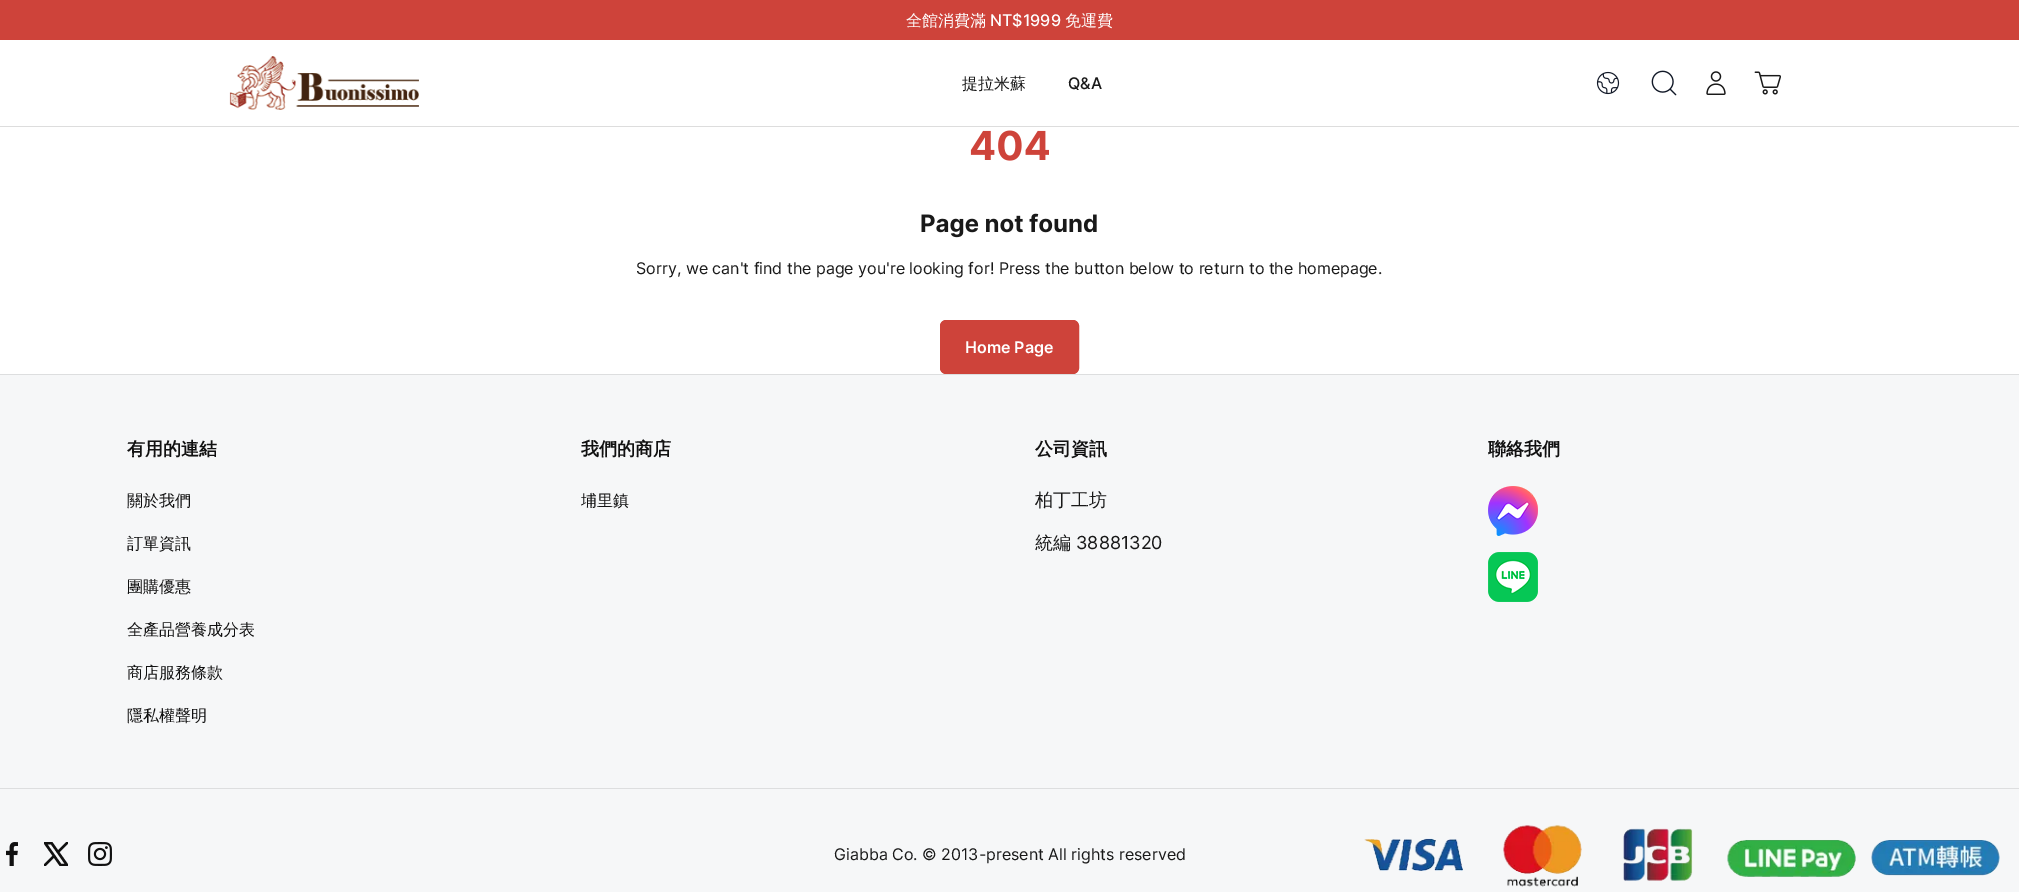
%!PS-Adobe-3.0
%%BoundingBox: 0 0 2019 892
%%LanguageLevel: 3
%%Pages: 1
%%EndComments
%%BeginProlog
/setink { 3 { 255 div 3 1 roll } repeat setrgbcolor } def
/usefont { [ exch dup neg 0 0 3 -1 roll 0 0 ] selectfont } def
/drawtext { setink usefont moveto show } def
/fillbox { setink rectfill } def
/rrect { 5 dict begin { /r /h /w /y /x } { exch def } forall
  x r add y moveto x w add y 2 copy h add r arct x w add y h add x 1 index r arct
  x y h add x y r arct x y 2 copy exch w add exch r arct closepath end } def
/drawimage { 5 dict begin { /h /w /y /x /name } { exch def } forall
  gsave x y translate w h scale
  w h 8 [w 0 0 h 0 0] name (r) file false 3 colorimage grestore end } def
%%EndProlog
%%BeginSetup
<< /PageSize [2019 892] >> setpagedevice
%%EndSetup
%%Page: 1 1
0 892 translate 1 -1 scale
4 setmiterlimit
0 0 2019 892 255 255 255 fillbox
0 0 2019 40 206 67 58 fillbox
(全館消費滿) 906 26 /WenQuanYiZenHei-Medium 16 255 255 255 drawtext
(NT$1999) 990 26 /Inter-Medium 16 255 255 255 drawtext
(免運費) 1065 26 /WenQuanYiZenHei-Medium 16 255 255 255 drawtext
0 126 2019 1 221 221 221 fillbox
(assets/img1.rgb) 229 56 190 54 drawimage
(提拉米蘇) 962 89 /WenQuanYiZenHei-Medium 16 25 25 25 drawtext
(Q&A) 1068 89 /Inter-Medium 16 25 25 25 drawtext
(assets/img2.rgb) 1596 71 24 24 drawimage
(assets/img3.rgb) 1651 70 26 26 drawimage
(assets/img4.rgb) 1706 71 20 24 drawimage
(assets/img5.rgb) 1754 71 27 24 drawimage
(assets/img6.rgb) 970 130 79 31 drawimage
(assets/img7.rgb) 921 213 176 25 drawimage
(Sorry, we can't find the page you're looking for! Press the button below to return to the homepage.) 636 274 /Inter-Regular 16 25 25 25 drawtext
206 67 58 setink
940.5 320.5 138 53 5.5 rrect gsave fill grestore
stroke
(Home Page) 965 353 /Inter-SemiBold 16 255 255 255 drawtext
0 375 2019 517 246 247 248 fillbox
0 374 2019 1 221 222 223 fillbox
(有用的連結) 127 455 /WenQuanYiZenHei-Bold 18 17 17 17 drawtext
(關於我們) 127 506 /WenQuanYiZenHei-Medium 16 17 17 17 drawtext
(訂單資訊) 127 549 /WenQuanYiZenHei-Medium 16 17 17 17 drawtext
(團購優惠) 127 592 /WenQuanYiZenHei-Medium 16 17 17 17 drawtext
(全產品營養成分表) 127 635 /WenQuanYiZenHei-Medium 16 17 17 17 drawtext
(商店服務條款) 127 678 /WenQuanYiZenHei-Medium 16 17 17 17 drawtext
(隱私權聲明) 127 721 /WenQuanYiZenHei-Medium 16 17 17 17 drawtext
(我們的商店) 581 455 /WenQuanYiZenHei-Bold 18 17 17 17 drawtext
(埔里鎮) 581 506 /WenQuanYiZenHei-Medium 16 17 17 17 drawtext
(公司資訊) 1035 455 /WenQuanYiZenHei-Bold 18 17 17 17 drawtext
(柏丁工坊) 1035 506 /WenQuanYiZenHei-Medium 18 25 25 25 drawtext
(統編) 1035 549 /WenQuanYiZenHei-Medium 18 25 25 25 drawtext
(38881320) 1076 549 /Inter-Regular 18 25 25 25 drawtext
(聯絡我們) 1488 455 /WenQuanYiZenHei-Bold 18 17 17 17 drawtext
(assets/img8.rgb) 1488 486 50 50 drawimage
(assets/img9.rgb) 1488 552 50 50 drawimage
0 788 2019 1 221 222 223 fillbox
(assets/img10.rgb) 6 842 12 24 drawimage
gsave
44 842 24 24 rectclip
17 17 17 setink
2.4 setlinewidth
1 setlinecap
1 setlinejoin
45 843 moveto 51.5 843 lineto 67 865 lineto 60.5 865 lineto closepath 53.5 856.5 moveto 45 865 lineto 67 843 moveto 58.5 851.5 lineto stroke
grestore
(assets/img11.rgb) 88 842 24 24 drawimage
(Giabba Co. © 2013-present All rights reserved) 834 860 /Inter-Regular 16 25 25 25 drawtext
(assets/img12.rgb) 1364 824 636 63 drawimage
showpage
%%EOF
